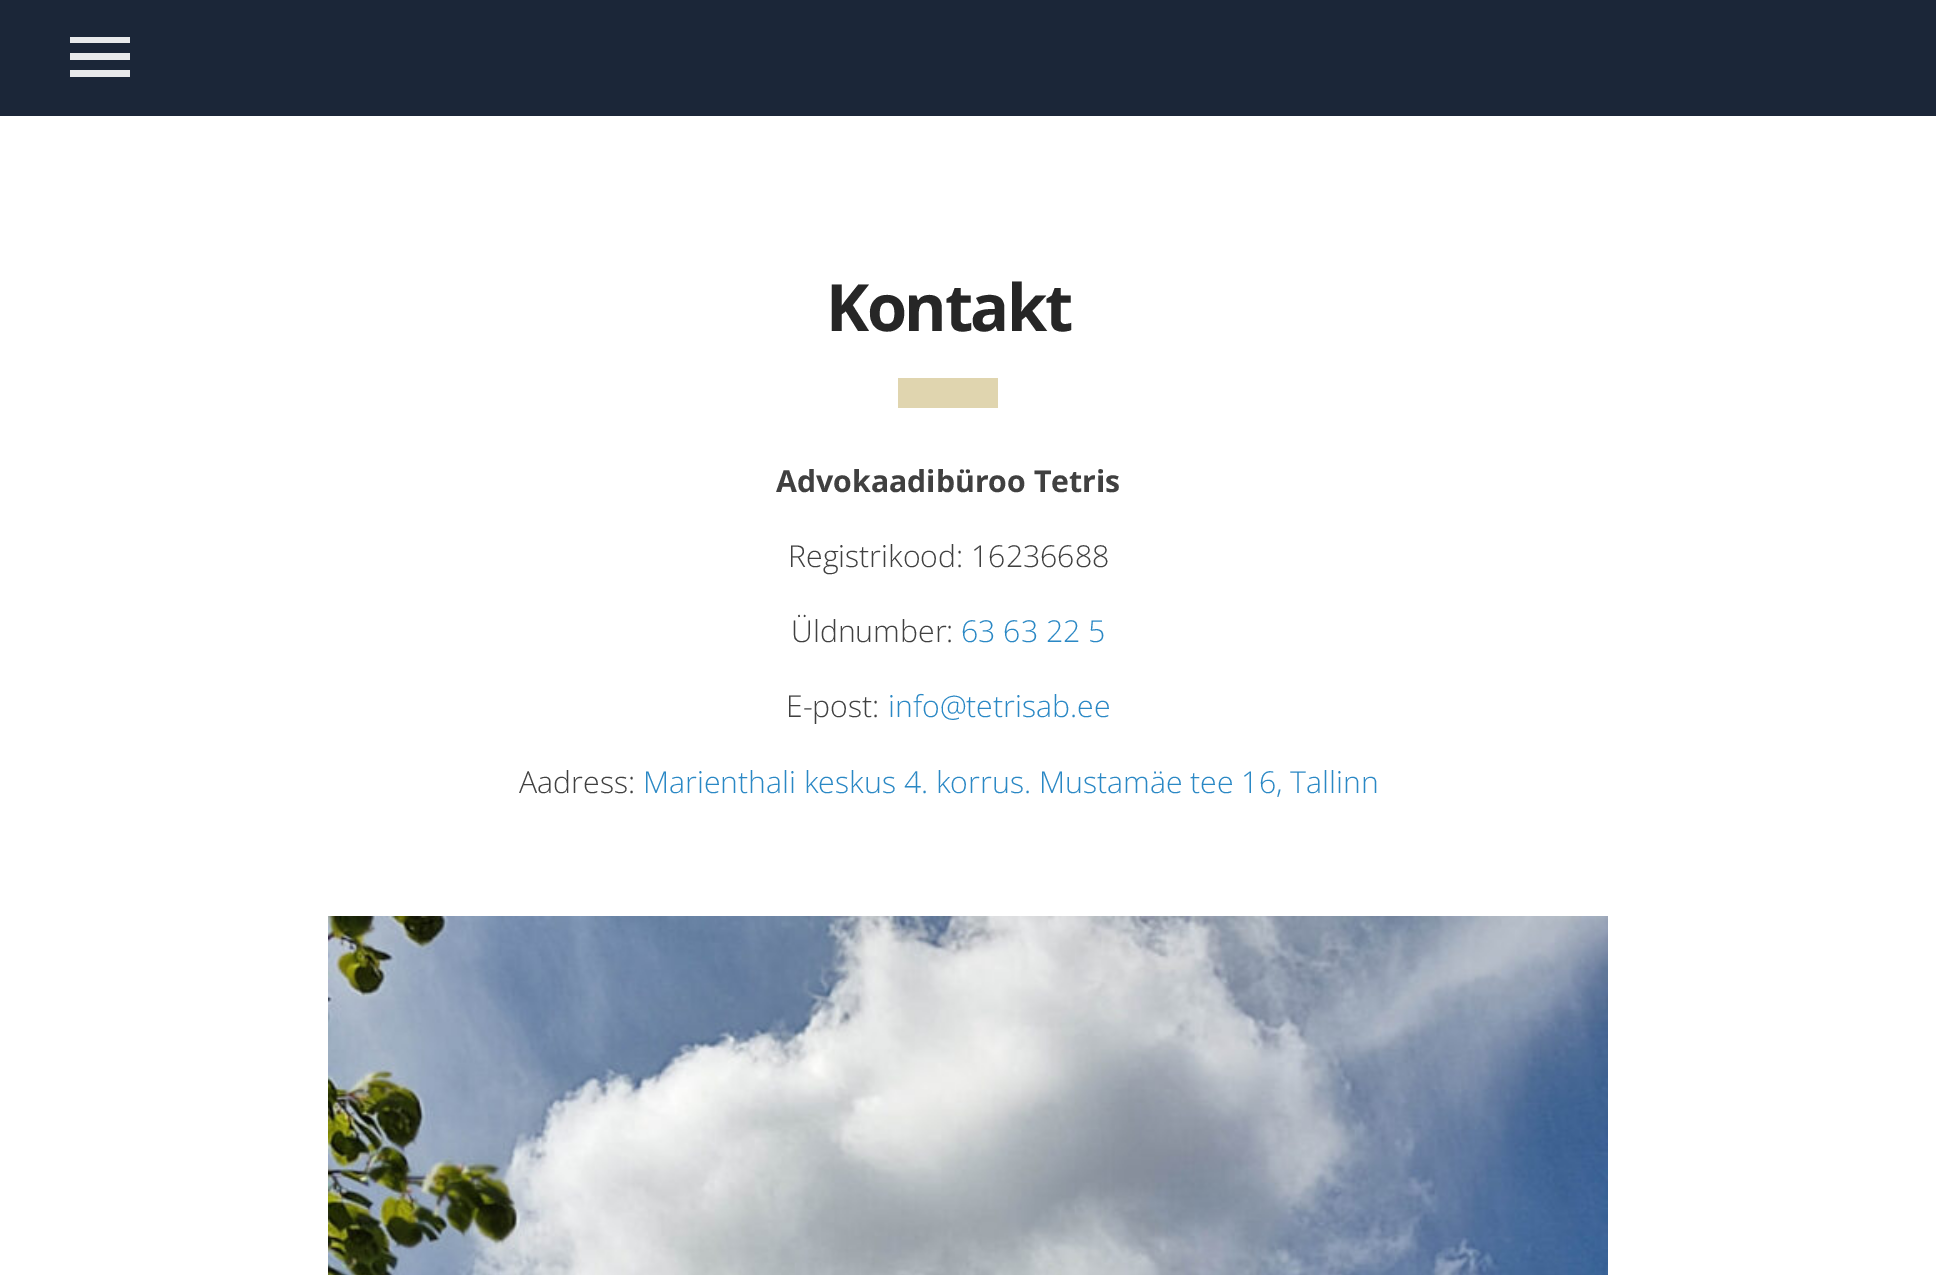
%!PS-Adobe-3.0
%%BoundingBox: 0 0 1936 1275
%%LanguageLevel: 3
%%Pages: 1
%%EndComments
%%BeginProlog
/setink { 3 { 255 div 3 1 roll } repeat setrgbcolor } def
/usefont { [ exch dup neg 0 0 3 -1 roll 0 0 ] selectfont } def
/drawtext { setink usefont moveto show } def
/fillbox { setink rectfill } def
/drawimage { 5 dict begin { /h /w /y /x /name } { exch def } forall
  gsave x y translate w h scale
  w h 8 [w 0 0 h 0 0] name (r) file false 3 colorimage grestore end } def
%%EndProlog
%%BeginSetup
<< /PageSize [1936 1275] >> setpagedevice
%%EndSetup
%%Page: 1 1
0 1275 translate 1 -1 scale
4 setmiterlimit
0 0 1936 1275 255 255 255 fillbox
0 0 1936 116 27 38 56 fillbox
232 233 235 setink
70 37 moveto 130 37 lineto 130 43 lineto 70 43 lineto closepath 70 60 moveto 70 53 lineto 130 53 lineto 130 60 lineto closepath 70 77 moveto 70 70 lineto 130 70 lineto 130 77 lineto closepath fill
/OpenSans-Bold 65 usefont
38 38 38 setink
826 331 moveto -2.5 0 (Kontakt) ashow
898 378 100 30 224 213 175 fillbox
(Advokaadibüroo Tetris) 776 492 /OpenSans-Bold 30.25 64 64 64 drawtext
(Registrikood: 16236688) 788 567 /OpenSans-Light 30.25 64 64 64 drawtext
(Üldnumber:) 791 642 /OpenSans-Light 30.25 64 64 64 drawtext
(63 63 22 5) 961 642 /OpenSans-Light 30.25 42 136 197 drawtext
(E-post:) 786 717 /OpenSans-Light 30.25 64 64 64 drawtext
(info@tetrisab.ee) 888 717 /OpenSans-Light 30.25 42 136 197 drawtext
(Aadress:) 519 793 /OpenSans-Light 30.25 64 64 64 drawtext
(Marienthali keskus 4. korrus. Mustamäe tee 16, Tallinn) 643 793 /OpenSans-Light 30.25 42 136 197 drawtext
(assets/img1.rgb) 328 916 1280 359 drawimage
showpage
%%EOF
